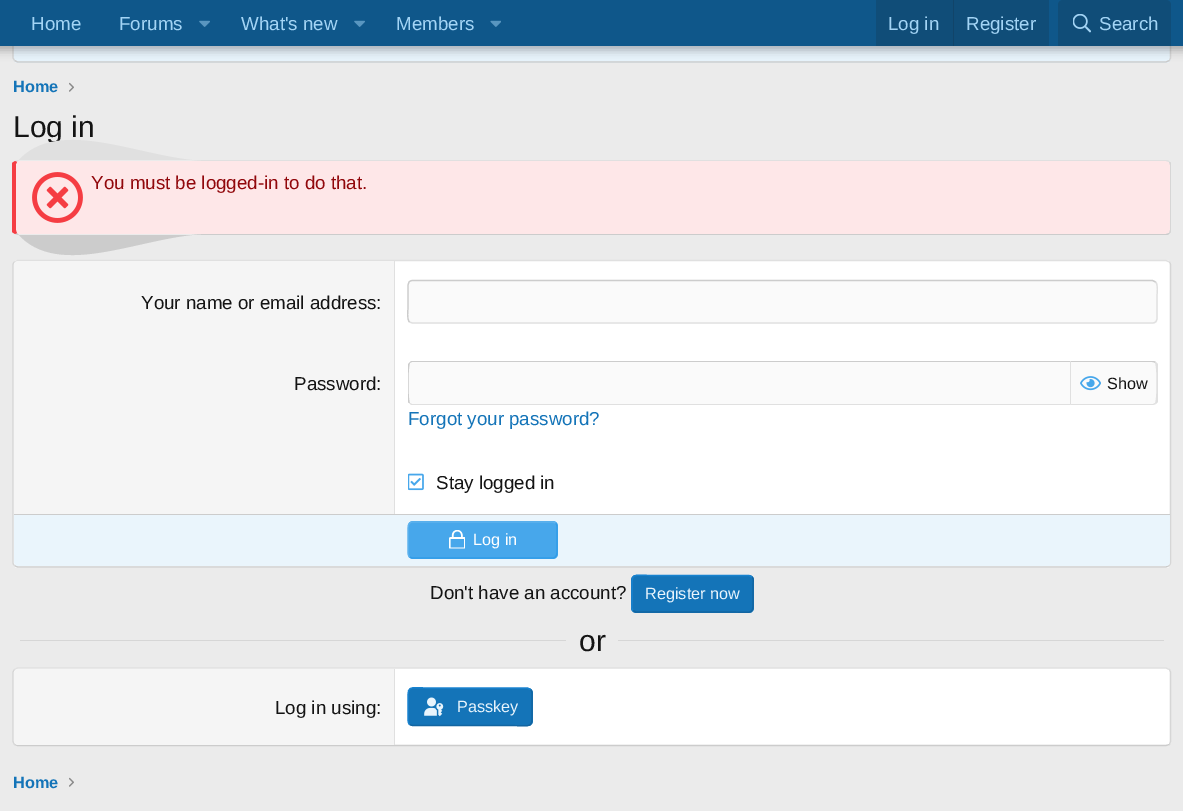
%!PS-Adobe-3.0
%%BoundingBox: 0 0 1183 811
%%LanguageLevel: 3
%%Pages: 1
%%EndComments
%%BeginProlog
/setink { 3 { 255 div 3 1 roll } repeat setrgbcolor } def
/usefont { [ exch dup neg 0 0 3 -1 roll 0 0 ] selectfont } def
/drawtext { setink usefont moveto show } def
/fillbox { setink rectfill } def
/setalpha { dup .setfillconstantalpha .setstrokeconstantalpha } def
/rrect { 5 dict begin { /r /h /w /y /x } { exch def } forall
  x r add y moveto x w add y 2 copy h add r arct x w add y h add x 1 index r arct
  x y h add x y r arct x y 2 copy exch w add exch r arct closepath end } def
/softshadow { 12 dict begin { /a /b /q /h /w /y /x } { exch def } forall gsave /was 0 def
  9 -2 -9 { dup b mul 4 div /e exch def 1 sub .425 mul 2.718 exch exp 1 add a .99 .min exch div /now exch def
    1 1 now sub 1 was sub div sub setalpha /was now def
    w h .min e 2 mul add 0 gt { x e sub y e sub w e 2 mul add h e 2 mul add
      q e add b .6 mul add w h .min 2 div e add .min 0 .max rrect fill } if } for grestore end } def
/drawimage { 5 dict begin { /h /w /y /x /name } { exch def } forall
  gsave x y translate w h scale
  w h 8 [w 0 0 h 0 0] name (r) file false 3 colorimage grestore end } def
%%EndProlog
%%BeginSetup
<< /PageSize [1183 811] /PageUsesTransparency true >> setpagedevice
%%EndSetup
%%Page: 1 1
0 .pushpdf14devicefilter
0 811 translate 1 -1 scale
4 setmiterlimit
0 0 1183 811 235 235 235 fillbox
232 244 252 setink
13 -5 1158 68 5 rrect fill
214 214 214 setink
1.2 setlinewidth
1169.5 -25.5 moveto 1170.5 -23 lineto 1170.5 58 lineto 1169.5 60.5 lineto stroke
204 204 204 setink
1169.5 60.5 moveto 1166 62 lineto 17.5 62 lineto 14.5 60.5 lineto stroke
214 214 214 setink
14.5 60.5 moveto 13 58 lineto 13 -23 lineto 14.5 -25.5 lineto stroke
0 0 0 setink
-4 -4 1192 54 0 5 0.3 softshadow
0 0 1183 46 15 87 138 fillbox
(Home) 31 30 /LiberationSans-Regular 18.75 163 212 245 drawtext
(Forums) 119 30 /LiberationSans-Regular 18.75 163 212 245 drawtext
(assets/img1.rgb) 199 20 11 7 drawimage
(What's new) 241 30 /LiberationSans-Regular 18.75 163 212 245 drawtext
(assets/img1.rgb) 354 20 11 7 drawimage
(Members) 396 30 /LiberationSans-Regular 18.75 163 212 245 drawtext
(assets/img2.rgb) 490 20 11 7 drawimage
876 0 173 46 16 77 120 fillbox
(Log in) 888 30 /LiberationSans-Regular 18.75 163 212 245 drawtext
953 0 1 46 17 68 105 fillbox
(Register) 966 30 /LiberationSans-Regular 18.75 163 212 245 drawtext
16 77 120 setink
1063 0 moveto 1166 0 lineto 1169 0 1171 2 1171 5 curveto 1171 46 lineto 1058 46 lineto 1058 5 lineto 1058 2 1060 0 1063 0 curveto closepath fill
(assets/img3.rgb) 1073 14 18 19 drawimage
(Search) 1099 30 /LiberationSans-Regular 18.75 163 212 245 drawtext
(Home) 13 92 /LiberationSans-Bold 16.25 20 116 184 drawtext
(assets/img4.rgb) 69 82 5 10 drawimage
(Log in) 13 137 /LiberationSans-Regular 30 20 20 20 drawtext
254 231 232 setink
18 161 moveto 1166 161 lineto 1168 161 1170 163 1170 165 curveto 1170 230 lineto 1170 232 1168 234 1166 234 curveto 18 234 lineto 17 234 16 232 16 230 curveto 16 165 lineto 16 163 17 161 18 161 curveto closepath fill
224 224 224 setink
18 160 moveto 15 161 lineto 17 162 lineto 59 113 145 161 209 161 curveto 1166 161 lineto 1169 162 lineto 1170 162 lineto 1169 161 1168 160 1166 160 curveto closepath fill
214 214 214 setink
1170 162 moveto 1171 162 1171 164 1171 165 curveto 1171 230 lineto 1171 231 1171 233 1170 233 curveto 1169 233 lineto 1170 230 lineto 1170 165 lineto 1169 162 lineto closepath fill
204 204 204 setink
18 235 moveto 1166 235 lineto 1168 235 1169 234 1170 233 curveto 1169 233 lineto 1166 234 lineto 209 234 lineto 145 234 59 282 17 233 curveto 15 234 lineto closepath fill
245 61 67 setink
12 163 moveto 15 161 lineto 17 162 lineto 16 164 lineto 16 219 lineto 16 221 15 231 17 233 curveto 15 234 lineto 12 232 lineto closepath fill
(assets/img5.rgb) 32 172 51 51 drawimage
(You must be logged-in to do that.) 91 189 /LiberationSans-Regular 18.75 145 8 12 drawtext
255 255 255 setink
13 260 1158 308 5 rrect fill
224 224 224 setink
14.5 262 moveto 17.5 260.5 lineto 1166 260.5 lineto 1169.5 262 lineto stroke
214 214 214 setink
1169.5 262 moveto 1170 262.5 1170.5 264 1170.5 265 curveto 1170.5 562.5 lineto 1170.5 563.5 1170 565 1169.5 565.5 curveto stroke
204 204 204 setink
1169.5 565.5 moveto 1166 567 lineto 17.5 567 lineto 14.5 565.5 lineto stroke
214 214 214 setink
14.5 565.5 moveto 13.5 565 13 563.5 13 562.5 curveto 13 265 lineto 13 264 13.5 262.5 14.5 262 curveto stroke
245 245 245 setink
18 261 moveto 395 261 lineto 395 343 lineto 14 343 lineto 14 265 lineto 14 263 16 261 18 261 curveto closepath fill
394 261 1 253 224 224 224 fillbox
(Your name or email address:) 141 309 /LiberationSans-Regular 18.75 20 20 20 drawtext
250 250 250 setink
408 280 750 44 5 rrect fill
224 224 224 setink
1155.5 282 moveto 1158.5 284.5 1157 293.5 1157 296 curveto 1157 319 lineto 1156 321.5 lineto 1155 322.5 1154 323 1152.5 323 curveto 412.5 323 lineto 409.5 322 lineto stroke
204 204 204 setink
409.5 322 moveto 406.5 319 408 310.5 408 307.5 curveto 408 285 lineto 409 282 lineto 410 281 411 280.5 412.5 280.5 curveto 1152.5 280.5 lineto 1155.5 282 lineto stroke
14 343 380 171 245 245 245 fillbox
(Password:) 294 390 /LiberationSans-Regular 18.75 20 20 20 drawtext
250 250 250 setink
413 361 moveto 1070 361 lineto 1070 405 lineto 413 405 lineto 410 405 408 403 408 400 curveto 408 366 lineto 408 363 410 361 413 361 curveto closepath fill
204 204 204 setink
412 362 moveto 411 362 410 363 410 363 curveto 409 363 lineto 411 361 lineto 1070 361 lineto 1070 362 lineto closepath fill
224 224 224 setink
1070 405 moveto 1070 404 lineto 412 404 lineto 410 403 lineto 409 403 lineto 410 404 411 405 412 405 curveto closepath fill
204 204 204 setink
409 403 moveto 408 403 408 401 408 400 curveto 408 366 lineto 408 365 408 364 409 363 curveto 410 363 lineto 408 366 408 401 410 403 curveto closepath fill
250 250 250 setink
1070 361 moveto 1153 361 lineto 1156 361 1158 363 1158 366 curveto 1158 400 lineto 1158 403 1156 405 1153 405 curveto 1070 405 lineto closepath fill
204 204 204 setink
1071 362 moveto 1070 361 lineto 1154 361 lineto 1156 362 lineto 1155 363 lineto 1155 363 1154 362 1152 362 curveto closepath fill
224 224 224 setink
1158 402 moveto 1156 404 lineto 1155 403 lineto 1157 401 1157 365 1155 363 curveto 1156 362 lineto 1158 364 lineto closepath fill
1152 405 moveto 1154 405 1155 404 1156 404 curveto 1155 403 lineto 1153 404 lineto 1071 404 lineto 1070 405 lineto closepath fill
1070 405 moveto 1071 404 lineto 1071 362 lineto 1070 361 lineto closepath fill
(assets/img6.rgb) 1080 376 21 15 drawimage
(Show) 1107 389 /LiberationSans-Regular 16.25 20 20 20 drawtext
(Forgot your password?) 408 425 /LiberationSans-Regular 18.75 20 116 184 drawtext
(assets/img7.rgb) 408 473 16 18 drawimage
(Stay logged in) 436 489 /LiberationSans-Regular 18.75 20 20 20 drawtext
0.9 setalpha
232 244 252 setink
14 514 moveto 1170 514 lineto 1170 562 lineto 1170 564 1168 566 1166 566 curveto 18 566 lineto 16 566 14 564 14 562 curveto closepath fill
1 setalpha
14 514 1156 1 204 204 204 fillbox
71 167 235 setink
408 521 150 38 5 rrect fill
48 156 232 setink
555.5 523 moveto 557.5 525 557 528.5 557 531 curveto 557 549 lineto 557 552.5 557.5 558 552.5 558 curveto 412 558 lineto 409.5 557 lineto stroke
94 178 237 setink
409.5 557 moveto 407.5 555 408 551.5 408 549 curveto 408 531 lineto 408 527.5 407.5 522 412.5 522 curveto 553 522 lineto 555.5 523 lineto stroke
(assets/img8.rgb) 449 530 16 19 drawimage
(Log in) 473 545 /LiberationSans-Regular 16.25 255 255 255 drawtext
(Don't have an account?) 430 599 /LiberationSans-Regular 18.75 20 20 20 drawtext
20 116 184 setink
631 575 123 38 5 rrect fill
18 101 161 setink
752 577 moveto 754 579 753 582 753 584.5 curveto 753 594 lineto 753 616.5 755.5 612 730 612 curveto 636 612 lineto 633 610.5 lineto stroke
23 130 207 setink
633 610.5 moveto 631 608.5 632 605.5 632 603 curveto 632 594 lineto 632 571 629.5 575.5 655 575.5 curveto 749 575.5 lineto 752 577 lineto stroke
(Register now) 645 599 /LiberationSans-Regular 16.25 232 244 252 drawtext
20 640 546 1 214 214 214 fillbox
(or) 579 651 /LiberationSans-Regular 30 20 20 20 drawtext
618 640 546 1 214 214 214 fillbox
255 255 255 setink
13 668 1158 78 5 rrect fill
224 224 224 setink
14.5 669.5 moveto 17.5 668 lineto 1166 668 lineto 1169.5 669.5 lineto stroke
214 214 214 setink
1169.5 669.5 moveto 1170.5 672 lineto 1170.5 741.5 lineto 1169.5 744.5 lineto stroke
204 204 204 setink
1169.5 744.5 moveto 1166 745.5 lineto 17.5 745.5 lineto 14.5 744.5 lineto stroke
214 214 214 setink
14.5 744.5 moveto 13 741.5 lineto 13 672 lineto 14.5 669.5 lineto stroke
245 245 245 setink
18 669 moveto 395 669 lineto 395 745 lineto 18 745 lineto 16 745 14 743 14 741 curveto 14 673 lineto 14 671 16 669 18 669 curveto closepath fill
394 669 1 76 224 224 224 fillbox
(Log in using:) 275 714 /LiberationSans-Regular 18.75 20 20 20 drawtext
20 116 184 setink
408 688 125 38 5 rrect fill
18 101 161 setink
530.5 689.5 moveto 532.5 691.5 532 695 532 697.5 curveto 532 707 lineto 532 730 534.5 725.5 508.5 725.5 curveto 412.5 725.5 lineto 409.5 724.5 lineto stroke
23 130 207 setink
409.5 724.5 moveto 407.5 722.5 408 719 408 716.5 curveto 408 707 lineto 408 683.5 405.5 688 431.5 688 curveto 527.5 688 lineto 530.5 689.5 lineto stroke
(assets/img9.rgb) 424 697 20 20 drawimage
(Passkey) 457 712 /LiberationSans-Regular 16.25 232 244 252 drawtext
(Home) 13 788 /LiberationSans-Bold 16.25 20 116 184 drawtext
(assets/img4.rgb) 69 777 5 10 drawimage
.poppdf14devicefilter showpage
%%EOF
